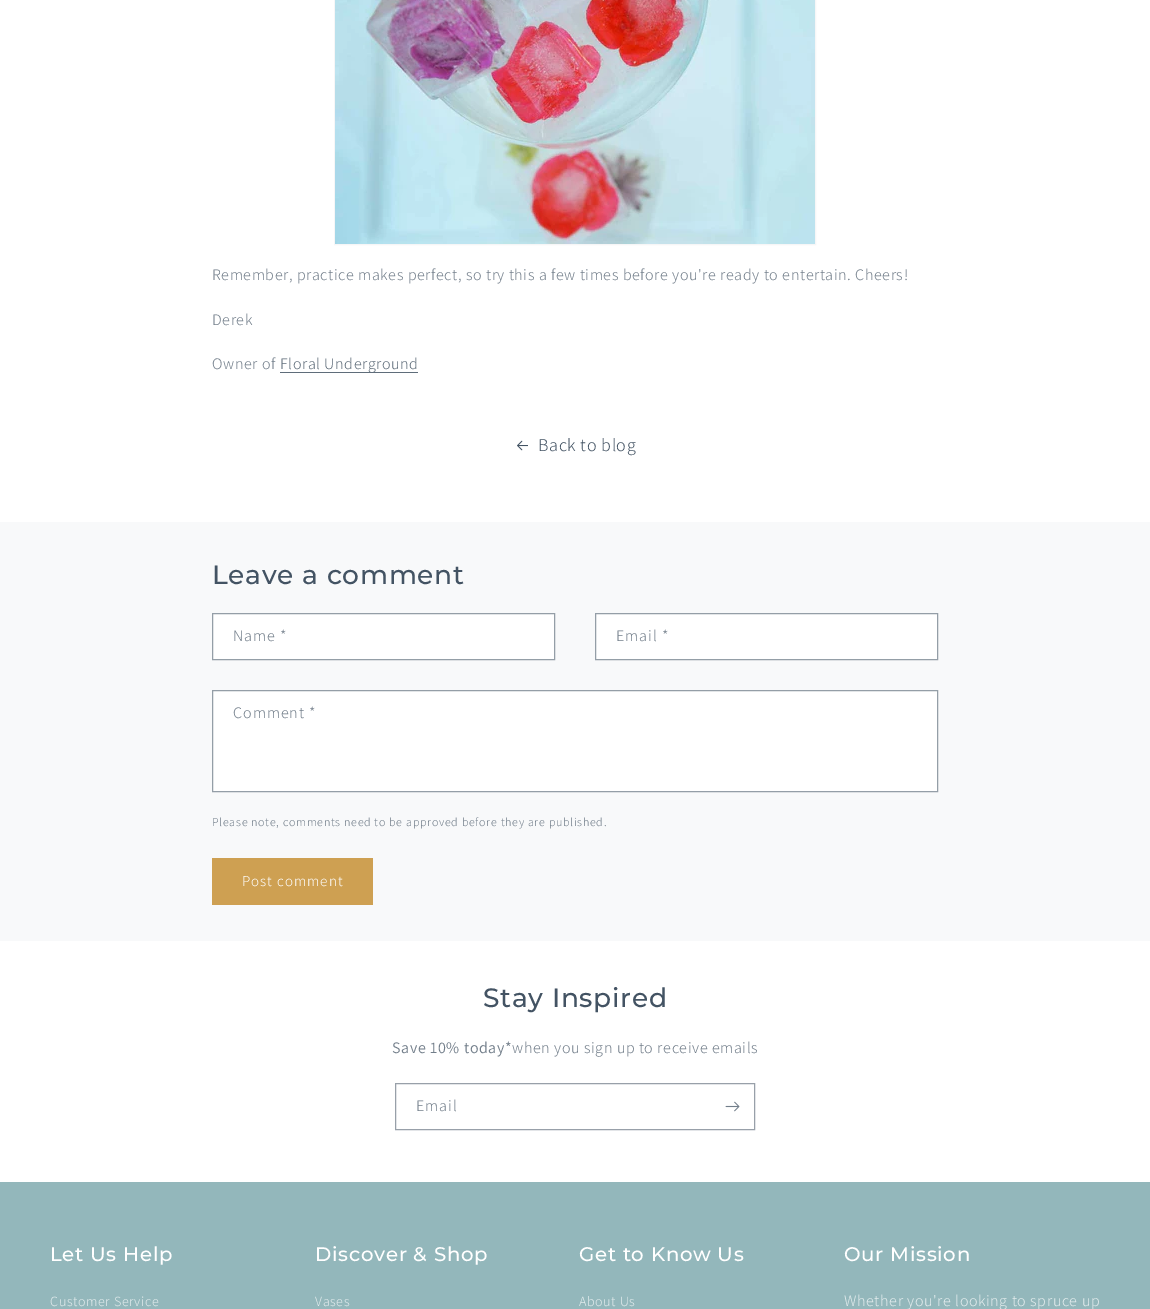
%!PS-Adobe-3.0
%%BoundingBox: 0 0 1150 1309
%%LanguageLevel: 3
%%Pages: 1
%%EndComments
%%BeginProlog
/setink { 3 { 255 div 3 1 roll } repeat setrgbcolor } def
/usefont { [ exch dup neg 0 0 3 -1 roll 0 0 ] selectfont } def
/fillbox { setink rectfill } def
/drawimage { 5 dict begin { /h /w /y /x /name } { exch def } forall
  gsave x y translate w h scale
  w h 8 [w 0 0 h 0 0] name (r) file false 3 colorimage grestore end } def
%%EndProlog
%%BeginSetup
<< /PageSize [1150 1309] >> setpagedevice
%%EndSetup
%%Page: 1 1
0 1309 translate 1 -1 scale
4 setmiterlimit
0 0 1150 1309 255 255 255 fillbox
246 246 247 setink
334.5 -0.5 481 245 rectstroke
(assets/img1.rgb) 335 0 480 244 drawimage
/Assistant-Light 16 usefont
114 126 138 setink
212 280 moveto 0.6 0 (Remember, practice makes perfect, so try this a few times before you're ready to entertain. Cheers!) ashow
212 325 moveto 0.6 0 (Derek) ashow
212 369 moveto 0.6 0 (Owner of) ashow
280 372 138 1 95 109 122 fillbox
280 369 moveto 0.6 0 (Floral Underground) ashow
(assets/img2.rgb) 517 440 11 11 drawimage
/Assistant-Light 18 usefont
67 83 99 setink
538 451 moveto 0.6 0 (Back to blog) ashow
0 522 1150 419 248 249 250 fillbox
/Montserrat-Medium 26.5 usefont
67 83 99 setink
212 584 moveto 0.7 0 (Leave a comment) ashow
213 614 341 45 255 255 255 fillbox
148 158 167 setink
212.5 613.5 342 46 rectstroke
/Assistant-Light 16 usefont
114 126 138 setink
233 641 moveto 1 0 (Name *) ashow
596 614 341 45 255 255 255 fillbox
148 158 167 setink
595.5 613.5 342 46 rectstroke
114 126 138 setink
616 641 moveto 1 0 (Email *) ashow
213 691 724 100 255 255 255 fillbox
148 158 167 setink
212.5 690.5 725 101 rectstroke
114 126 138 setink
233 718 moveto 1 0 (Comment *) ashow
/Assistant-Light 12 usefont
212 826 moveto 0.7 0 (Please note, comments need to be approved before they are published.) ashow
212 858 161 47 206 160 82 fillbox
/Assistant-Light 15 usefont
255 255 255 setink
242 886 moveto 1 0 (Post comment) ashow
/Montserrat-Medium 26.5 usefont
67 83 99 setink
483 1007 moveto 0.7 0 (Stay Inspired) ashow
/Assistant-ExtraLight 16 usefont
114 126 138 setink
392 1053 moveto 0.6 0 (Save 10% today*) ashow
/Assistant-Light 16 usefont
512 1053 moveto 0.6 0 (when you sign up to receive emails) ashow
152 160 169 setink
395.5 1083.5 359 46 rectstroke
114 126 138 setink
416 1111 moveto 1 0 (Email) ashow
(assets/img3.rgb) 725 1101 15 11 drawimage
0 1182 1150 127 147 183 187 fillbox
/Montserrat-Medium 19.75 usefont
255 255 255 setink
50 1261 moveto 0.7 0 (Let Us Help) ashow
/Assistant-Light 14 usefont
228 237 238 setink
50 1306 moveto 0.6 0 (Customer Service) ashow
/Montserrat-Medium 19.75 usefont
255 255 255 setink
315 1261 moveto 0.7 0 (Discover & Shop) ashow
/Assistant-Light 14 usefont
228 237 238 setink
315 1306 moveto 0.6 0 (Vases) ashow
/Montserrat-Medium 19.75 usefont
255 255 255 setink
579 1261 moveto 0.7 0 (Get to Know Us) ashow
/Assistant-Light 14 usefont
228 237 238 setink
579 1306 moveto 0.6 0 (About Us) ashow
/Montserrat-Medium 19.75 usefont
255 255 255 setink
844 1261 moveto 0.7 0 (Our Mission) ashow
/Assistant-Light 16 usefont
228 237 238 setink
844 1306 moveto 0.6 0 (Whether you're looking to spruce up) ashow
showpage
%%EOF
